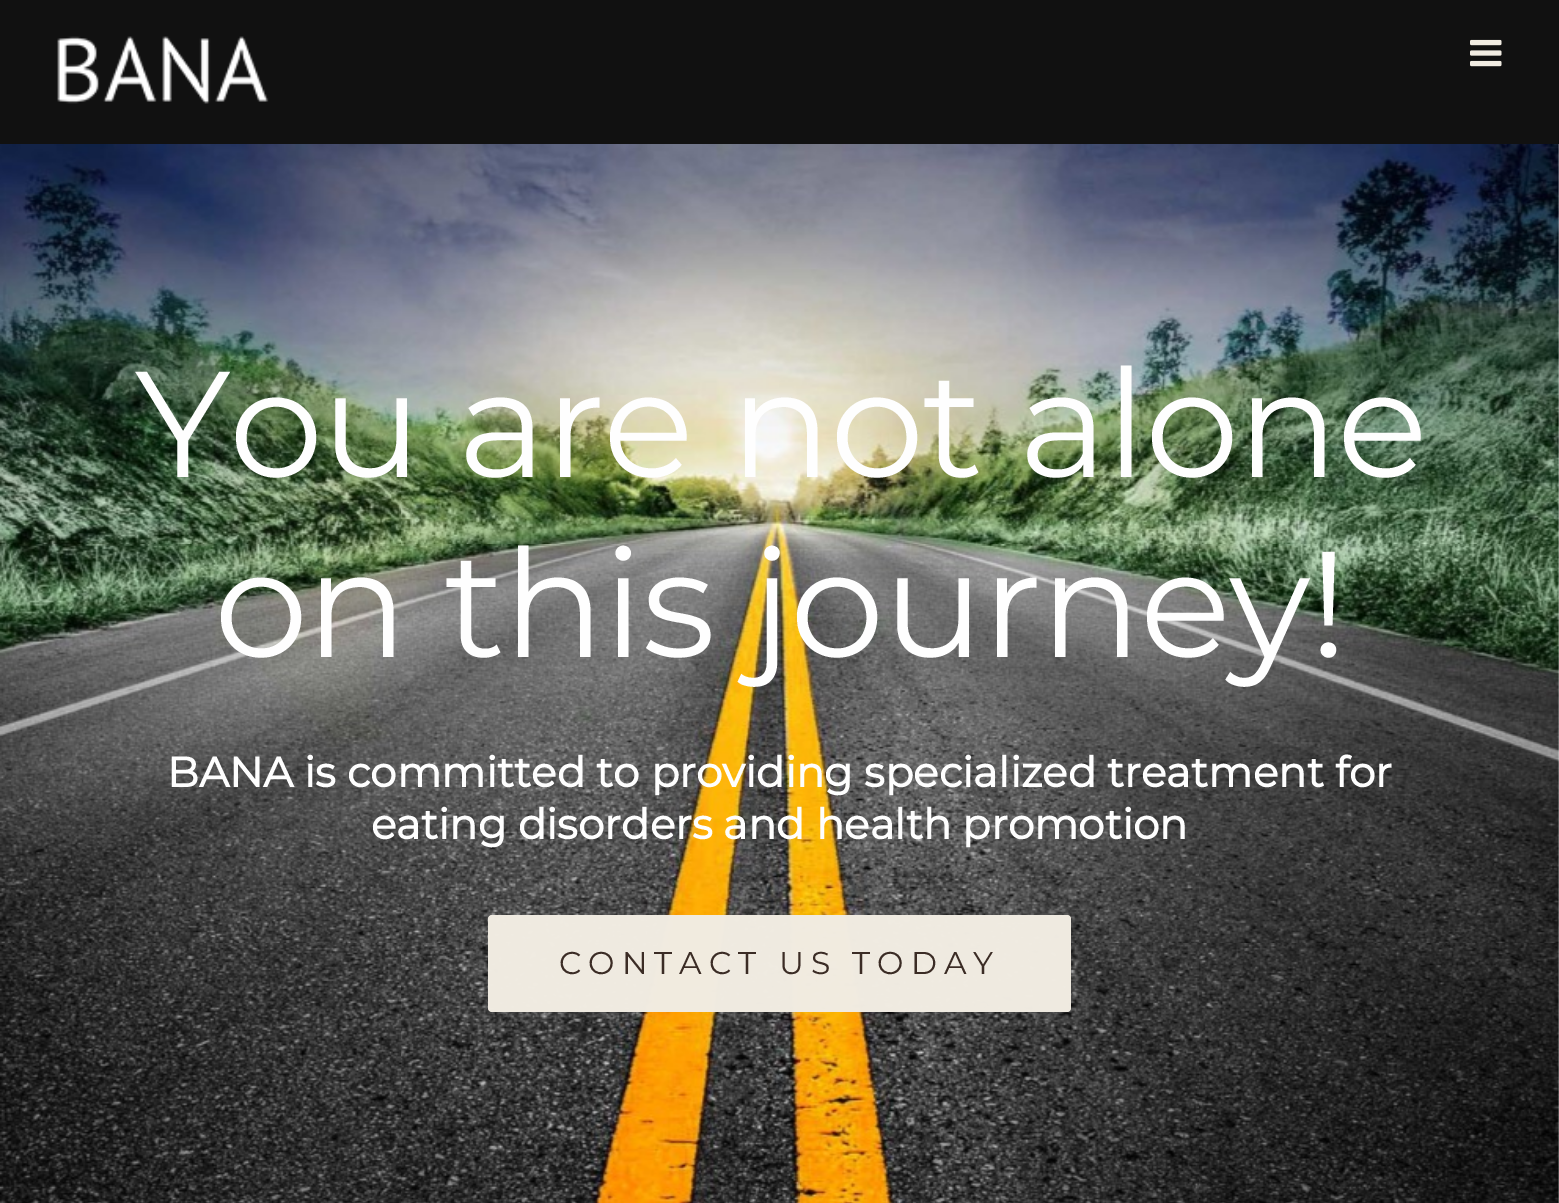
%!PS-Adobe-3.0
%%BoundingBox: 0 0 1559 1203
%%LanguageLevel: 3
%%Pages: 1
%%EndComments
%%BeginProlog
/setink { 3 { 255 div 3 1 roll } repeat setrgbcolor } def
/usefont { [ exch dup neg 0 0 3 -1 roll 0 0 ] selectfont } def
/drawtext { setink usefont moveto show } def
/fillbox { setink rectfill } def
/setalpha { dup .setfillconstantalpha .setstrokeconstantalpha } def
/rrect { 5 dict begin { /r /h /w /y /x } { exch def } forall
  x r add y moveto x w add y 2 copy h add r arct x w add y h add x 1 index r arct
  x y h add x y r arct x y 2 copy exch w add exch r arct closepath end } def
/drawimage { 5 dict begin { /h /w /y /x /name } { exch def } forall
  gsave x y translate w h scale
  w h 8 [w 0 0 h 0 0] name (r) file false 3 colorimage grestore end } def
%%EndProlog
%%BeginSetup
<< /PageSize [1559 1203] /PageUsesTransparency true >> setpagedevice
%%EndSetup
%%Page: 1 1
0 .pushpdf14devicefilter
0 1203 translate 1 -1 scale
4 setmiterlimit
0 0 1559 1203 255 255 255 fillbox
0 0 1559 144 17 17 17 fillbox
(assets/img1.rgb) 57 36 212 68 drawimage
(assets/img2.rgb) 1470 39 32 28 drawimage
(assets/img3.rgb) 0 144 1559 1059 drawimage
/Montserrat-Thin 150.25 usefont
254 254 254 setink
135 477 moveto -1.75 0 (You are not alone) ashow
214 657 moveto -1.75 0 (on this journey!) ashow
(BANA is committed to providing specialized treatment for) 167 787 /Montserrat-Bold 42 254 254 254 drawtext
(eating disorders and health promotion) 371 839 /Montserrat-Bold 42 254 254 254 drawtext
0.99 setalpha
241 236 226 setink
488 915 583 97 4 rrect fill
/Montserrat-Thin 31.5 usefont
1 setalpha
59 44 37 setink
559 974 moveto 7 0 (CONTACT US TODAY) ashow
.poppdf14devicefilter showpage
%%EOF
